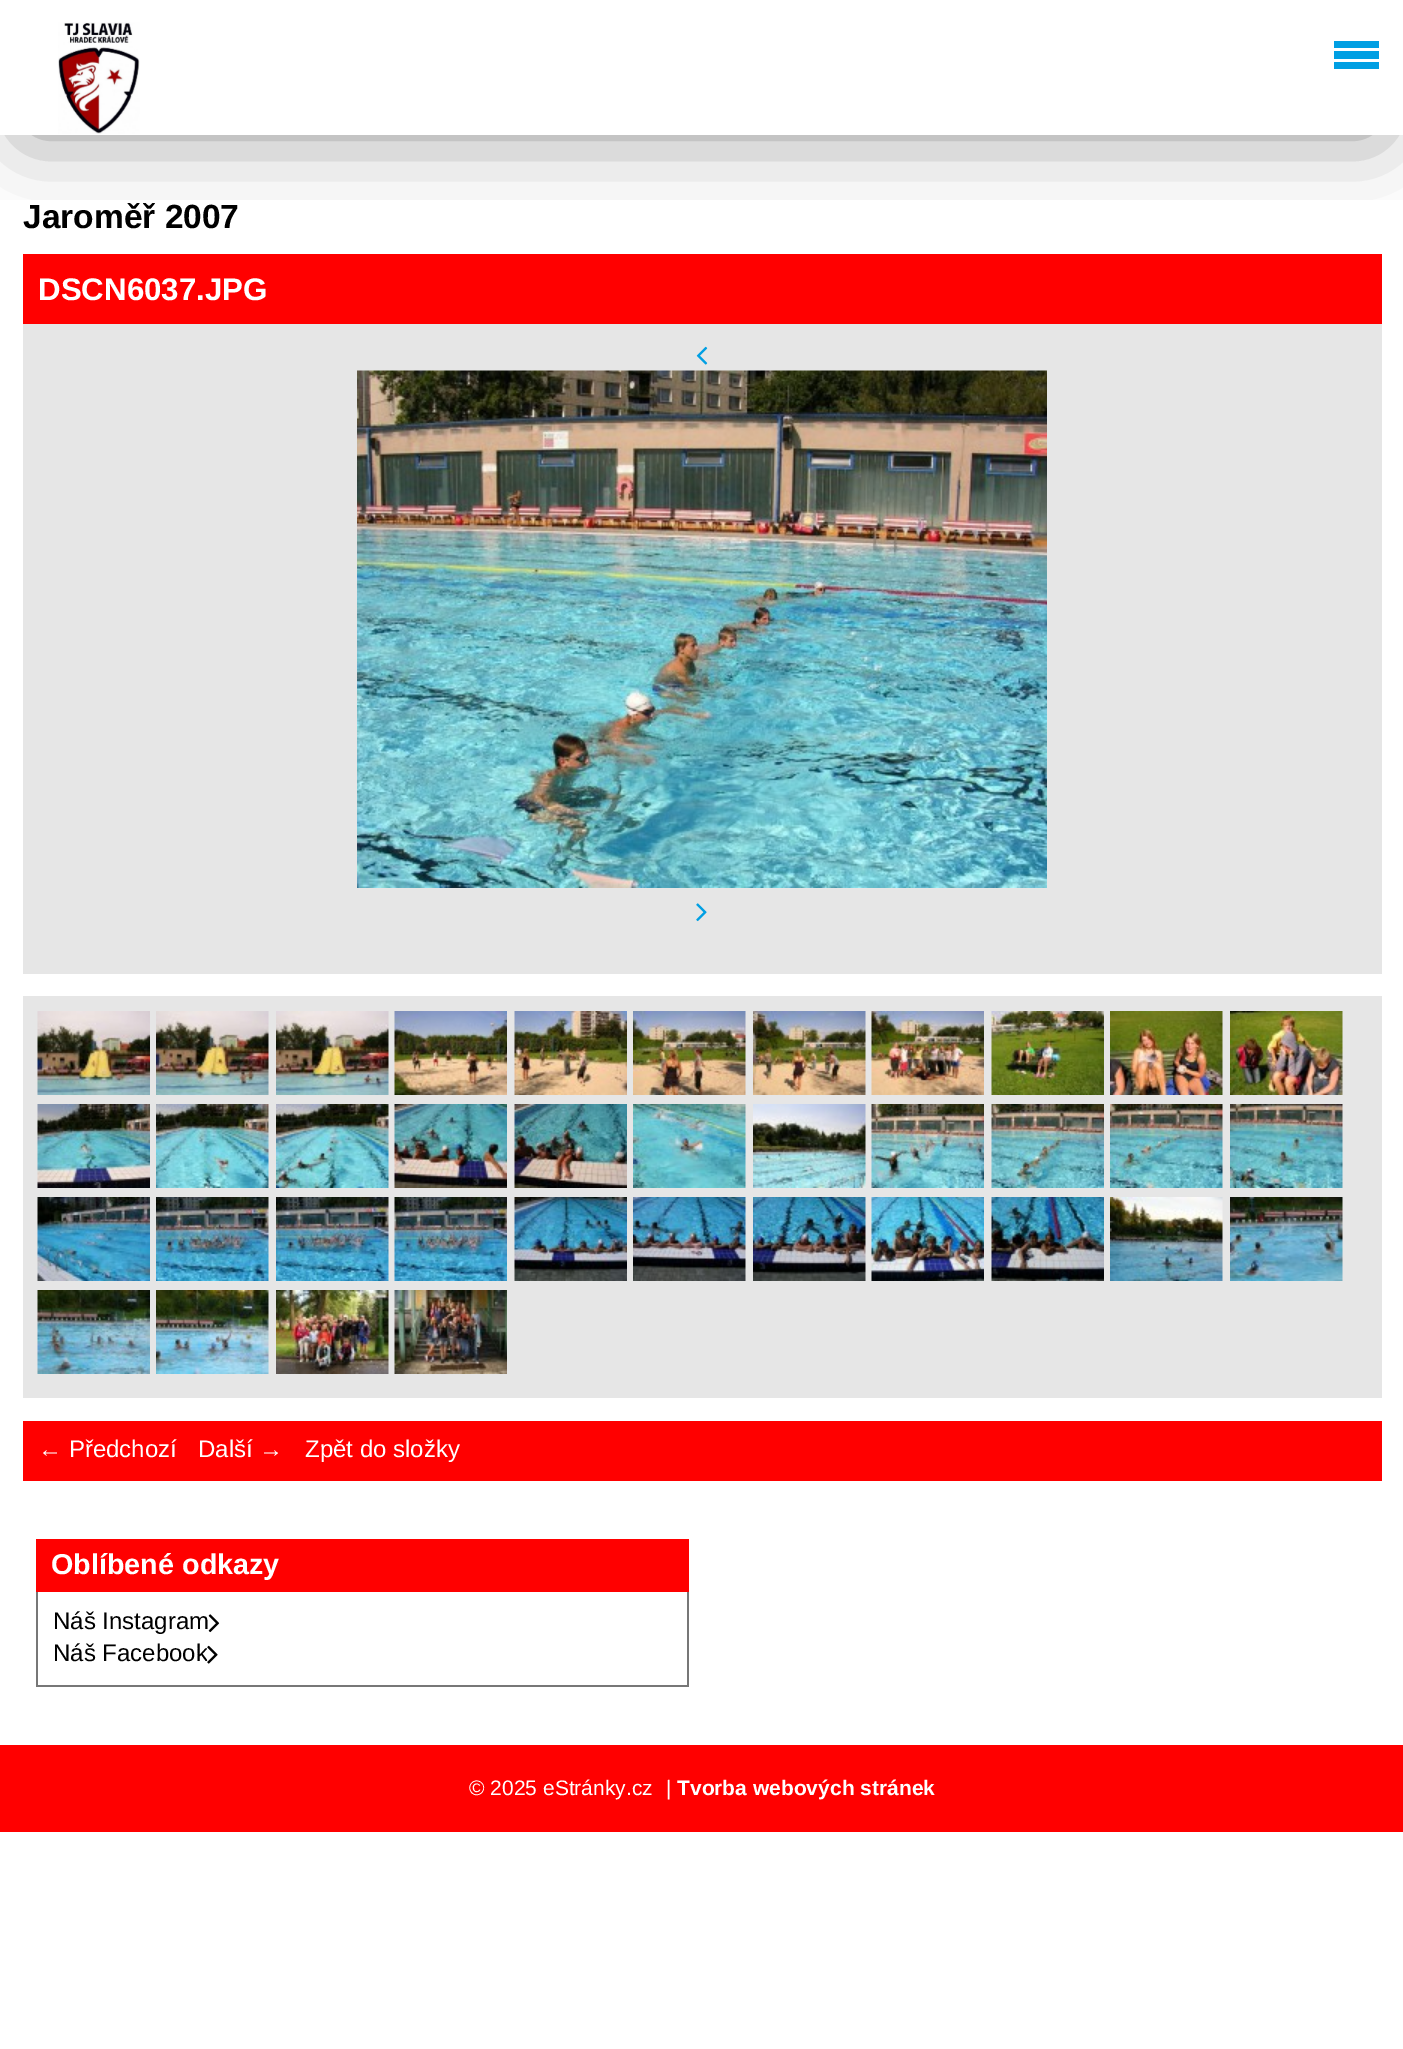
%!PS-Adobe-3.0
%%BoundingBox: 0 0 1403 2049
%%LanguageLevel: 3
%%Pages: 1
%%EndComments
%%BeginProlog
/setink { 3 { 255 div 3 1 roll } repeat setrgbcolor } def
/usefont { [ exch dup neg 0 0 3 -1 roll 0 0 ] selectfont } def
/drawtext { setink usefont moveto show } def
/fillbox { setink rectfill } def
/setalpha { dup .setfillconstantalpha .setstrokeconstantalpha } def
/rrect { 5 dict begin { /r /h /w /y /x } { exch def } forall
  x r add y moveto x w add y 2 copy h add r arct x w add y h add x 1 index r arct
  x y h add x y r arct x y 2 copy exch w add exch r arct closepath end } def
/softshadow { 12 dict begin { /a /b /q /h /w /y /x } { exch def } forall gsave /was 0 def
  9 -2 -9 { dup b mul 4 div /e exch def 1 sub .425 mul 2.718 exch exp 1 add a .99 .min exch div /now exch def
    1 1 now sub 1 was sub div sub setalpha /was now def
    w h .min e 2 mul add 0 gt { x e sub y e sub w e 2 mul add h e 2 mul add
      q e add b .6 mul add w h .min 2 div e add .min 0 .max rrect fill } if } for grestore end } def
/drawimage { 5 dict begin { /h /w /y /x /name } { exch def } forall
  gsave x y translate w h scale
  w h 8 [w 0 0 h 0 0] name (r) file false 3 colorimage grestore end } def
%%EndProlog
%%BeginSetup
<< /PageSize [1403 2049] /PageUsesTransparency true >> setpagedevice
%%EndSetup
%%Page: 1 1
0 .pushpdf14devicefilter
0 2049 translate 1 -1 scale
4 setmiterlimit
0 0 1403 2049 255 255 255 fillbox
gsave
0 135 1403 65 rectclip
0 0 0 setink
27 50 1350 81 0 40.5 0.45 softshadow
grestore
(assets/img1.rgb) 58 22 82 112 drawimage
1334 41 45 7 0 159 227 fillbox
1334 51 45 8 0 159 227 fillbox
1334 62 45 7 0 159 227 fillbox
(Jaroměř 2007) 23 228 /LiberationSans-Bold 33.5 0 0 0 drawtext
23 254 1359 70 255 0 0 fillbox
(DSCN6037.JPG) 38 300 /LiberationSans-Bold 31.25 255 255 255 drawtext
23 324 1359 650 230 230 230 fillbox
(assets/img2.rgb) 696 346 12 19 drawimage
(assets/img3.rgb) 357 370 690 518 drawimage
(assets/img4.rgb) 696 903 11 19 drawimage
23 996 1359 402 230 230 230 fillbox
(assets/img5.rgb) 37 1011 113 84 drawimage
(assets/img6.rgb) 156 1011 113 84 drawimage
(assets/img7.rgb) 276 1011 113 84 drawimage
(assets/img8.rgb) 394 1011 113 84 drawimage
(assets/img9.rgb) 514 1011 113 84 drawimage
(assets/img10.rgb) 633 1011 113 84 drawimage
(assets/img11.rgb) 753 1011 113 84 drawimage
(assets/img12.rgb) 871 1011 113 84 drawimage
(assets/img13.rgb) 991 1011 113 84 drawimage
(assets/img14.rgb) 1110 1011 113 84 drawimage
(assets/img15.rgb) 1230 1011 113 84 drawimage
(assets/img16.rgb) 37 1104 113 84 drawimage
(assets/img17.rgb) 156 1104 113 84 drawimage
(assets/img18.rgb) 276 1104 113 84 drawimage
(assets/img19.rgb) 394 1104 113 84 drawimage
(assets/img20.rgb) 514 1104 113 84 drawimage
(assets/img21.rgb) 633 1104 113 84 drawimage
(assets/img22.rgb) 753 1104 113 84 drawimage
(assets/img23.rgb) 871 1104 113 84 drawimage
(assets/img24.rgb) 991 1104 113 84 drawimage
(assets/img25.rgb) 1110 1104 113 84 drawimage
(assets/img26.rgb) 1230 1104 113 84 drawimage
(assets/img27.rgb) 37 1197 113 84 drawimage
(assets/img28.rgb) 156 1197 113 84 drawimage
(assets/img29.rgb) 276 1197 113 84 drawimage
(assets/img30.rgb) 394 1197 113 84 drawimage
(assets/img31.rgb) 514 1197 113 84 drawimage
(assets/img32.rgb) 633 1197 113 84 drawimage
(assets/img33.rgb) 753 1197 113 84 drawimage
(assets/img34.rgb) 871 1197 113 84 drawimage
(assets/img35.rgb) 991 1197 113 84 drawimage
(assets/img36.rgb) 1110 1197 113 84 drawimage
(assets/img37.rgb) 1230 1197 113 84 drawimage
(assets/img38.rgb) 37 1290 113 84 drawimage
(assets/img39.rgb) 156 1290 113 84 drawimage
(assets/img40.rgb) 276 1290 113 84 drawimage
(assets/img41.rgb) 394 1290 113 84 drawimage
23 1421 1359 60 255 0 0 fillbox
(← Předchozí) 38 1457 /LiberationSans-Regular 24 255 255 255 drawtext
(Další →) 198 1457 /LiberationSans-Regular 24 255 255 255 drawtext
(Zpět do složky) 305 1457 /LiberationSans-Regular 24 255 255 255 drawtext
36 1539 653 53 255 0 0 fillbox
(Oblíbené odkazy) 51 1574 /LiberationSans-Bold 28.75 255 255 255 drawtext
687 1592 2 94 119 119 119 fillbox
36 1685 653 2 119 119 119 fillbox
36 1592 2 94 119 119 119 fillbox
(Náš Instagram) 53 1629 /LiberationSans-Regular 24 0 0 0 drawtext
(assets/img42.rgb) 208 1614 12 19 drawimage
(Náš Facebook) 53 1661 /LiberationSans-Regular 24 0 0 0 drawtext
(assets/img43.rgb) 207 1645 11 19 drawimage
0 1745 1403 87 255 0 0 fillbox
(© 2025 eStránky.cz) 469 1795 /LiberationSans-Regular 21 255 255 255 drawtext
(|) 666 1795 /LiberationSans-Regular 21 255 255 255 drawtext
(Tvorba webových stránek) 677 1795 /LiberationSans-Bold 21 255 255 255 drawtext
.poppdf14devicefilter showpage
%%EOF
